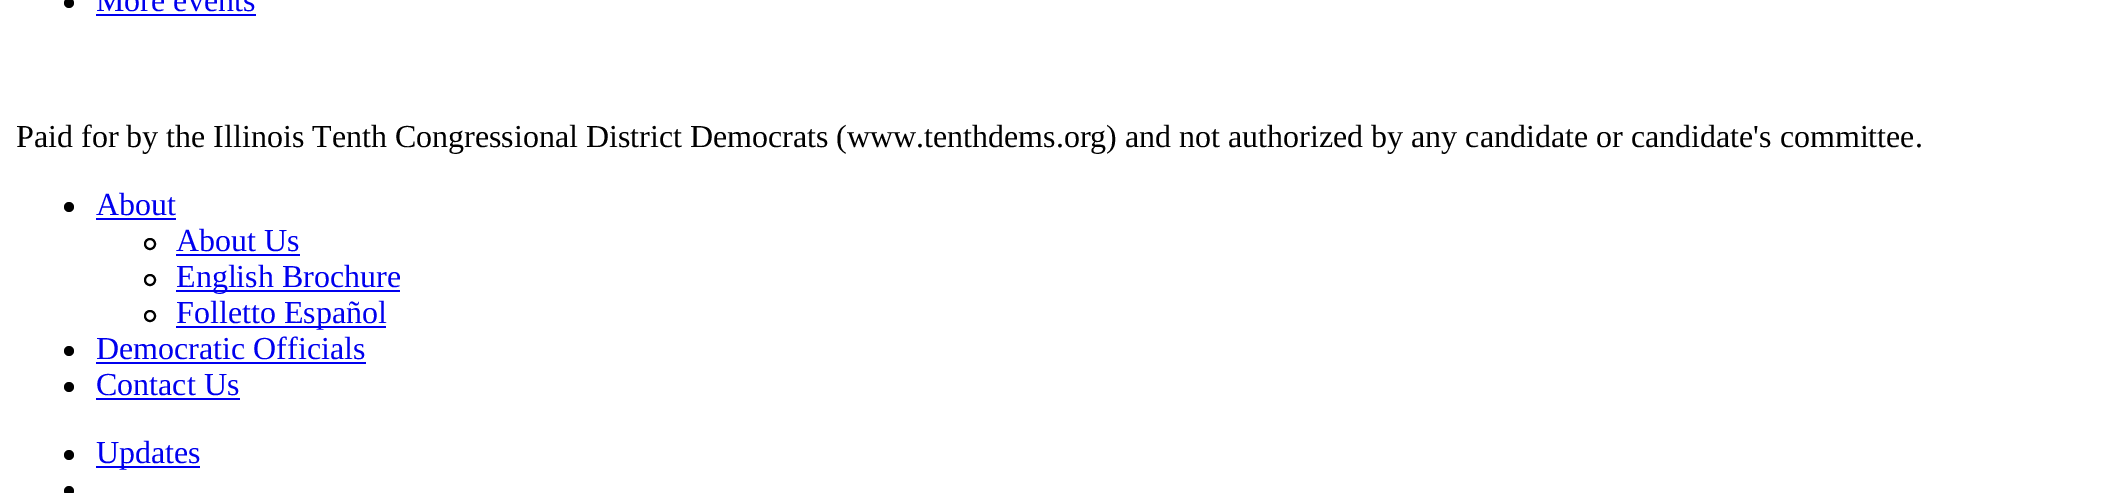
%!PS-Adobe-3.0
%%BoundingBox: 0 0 2117 493
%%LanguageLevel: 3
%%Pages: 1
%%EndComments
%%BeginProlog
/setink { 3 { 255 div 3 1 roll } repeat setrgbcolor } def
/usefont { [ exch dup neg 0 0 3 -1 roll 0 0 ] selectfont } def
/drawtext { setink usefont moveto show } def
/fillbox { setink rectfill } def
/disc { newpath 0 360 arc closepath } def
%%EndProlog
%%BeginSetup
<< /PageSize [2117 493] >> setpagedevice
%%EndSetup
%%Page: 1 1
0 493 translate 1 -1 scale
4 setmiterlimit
0 0 2117 493 255 255 255 fillbox
0 0 0 setink
69 3 5 disc fill
(More events) 96 11 /LiberationSerif-Regular 32 0 0 238 drawtext
96 14 160 2 0 0 238 fillbox
(Paid for by the Illinois Tenth Congressional District Democrats \(www.tenthdems.org\) and not authorized by any candidate or candidate's committee.) 16 147 /LiberationSerif-Regular 32 0 0 0 drawtext
69 207 5 disc fill
(About) 96 215 /LiberationSerif-Regular 32 0 0 238 drawtext
96 218 80 2 0 0 238 fillbox
0 0 0 setink
2 setlinewidth
150 244 5 disc stroke
(About Us) 176 251 /LiberationSerif-Regular 32 0 0 238 drawtext
176 254 124 2 0 0 238 fillbox
0 0 0 setink
150 280 5 disc stroke
176 290 224 2 0 0 238 fillbox
(English Brochure) 176 287 /LiberationSerif-Regular 32 0 0 238 drawtext
0 0 0 setink
150 316 5 disc stroke
176 326 210 2 0 0 238 fillbox
(Folletto Español) 176 323 /LiberationSerif-Regular 32 0 0 238 drawtext
0 0 0 setink
69 351 5 disc fill
(Democratic Officials) 96 359 /LiberationSerif-Regular 32 0 0 238 drawtext
96 362 270 2 0 0 238 fillbox
0 0 0 setink
69 387 5 disc fill
(Contact Us) 96 395 /LiberationSerif-Regular 32 0 0 238 drawtext
96 398 144 2 0 0 238 fillbox
0 0 0 setink
69 455 5 disc fill
96 466 104 2 0 0 238 fillbox
(Updates) 96 463 /LiberationSerif-Regular 32 0 0 238 drawtext
0 0 0 setink
69 491 5 disc fill
showpage
%%EOF
